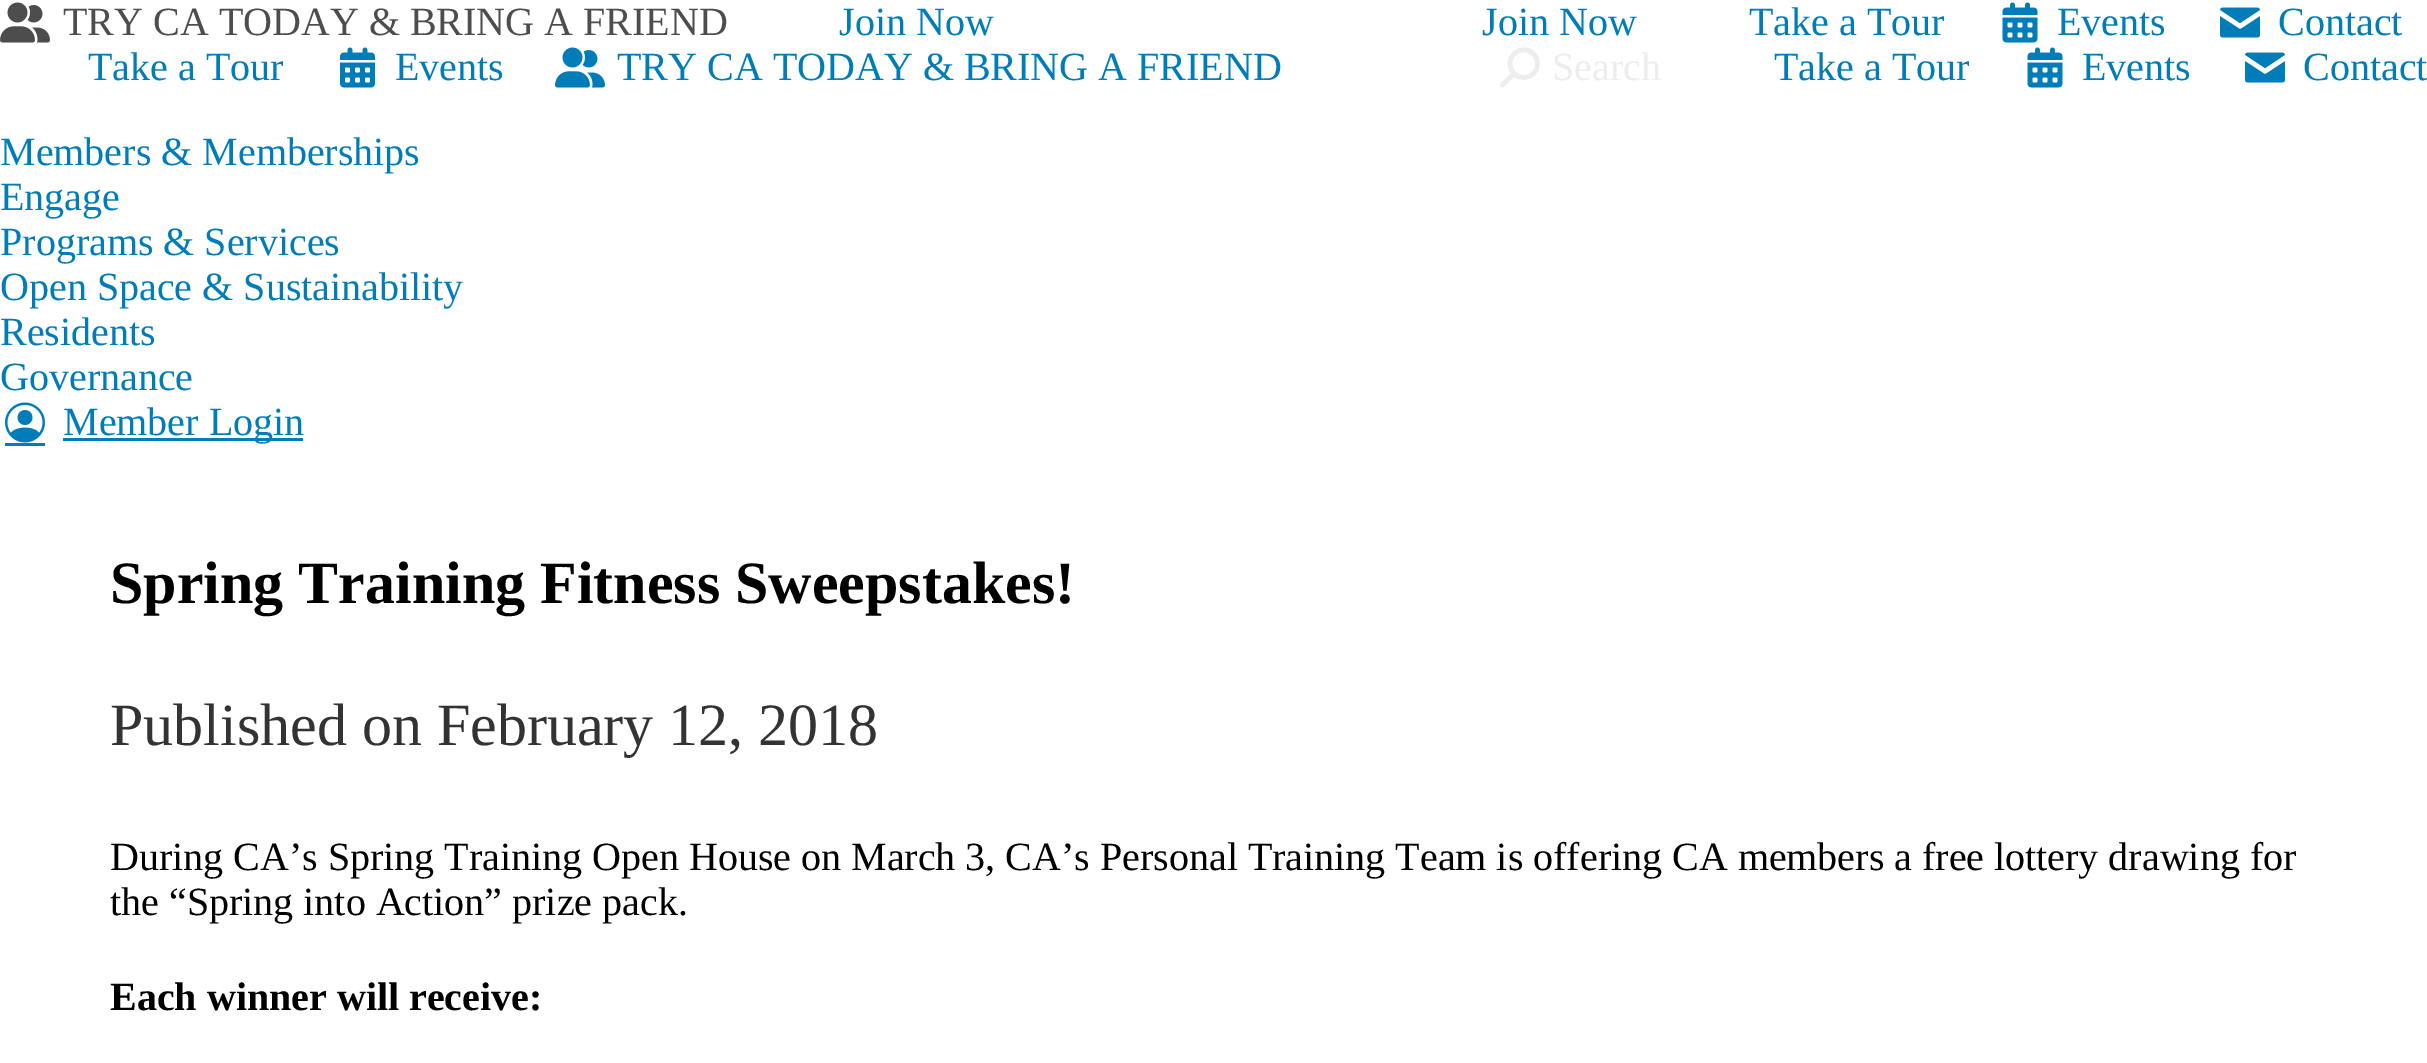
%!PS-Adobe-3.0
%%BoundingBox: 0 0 2427 1063
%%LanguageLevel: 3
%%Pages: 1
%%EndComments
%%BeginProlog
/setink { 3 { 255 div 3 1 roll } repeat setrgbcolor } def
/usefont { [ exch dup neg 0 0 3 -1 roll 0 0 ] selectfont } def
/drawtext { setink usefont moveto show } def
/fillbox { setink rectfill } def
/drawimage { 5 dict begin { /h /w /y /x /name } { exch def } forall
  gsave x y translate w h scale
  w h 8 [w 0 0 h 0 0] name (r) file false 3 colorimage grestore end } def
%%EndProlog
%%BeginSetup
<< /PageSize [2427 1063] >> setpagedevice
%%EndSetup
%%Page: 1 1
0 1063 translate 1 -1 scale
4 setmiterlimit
0 0 2427 1063 255 255 255 fillbox
(assets/img1.rgb) 0 2 50 41 drawimage
(TRY CA TODAY & BRING A FRIEND) 63 35 /LiberationSerif-Regular 40 77 77 77 drawtext
(Join Now) 839 35 /LiberationSerif-Regular 40 0 125 185 drawtext
(Take a Tour) 88 80 /LiberationSerif-Regular 40 0 125 185 drawtext
(assets/img2.rgb) 340 47 35 41 drawimage
(Events) 395 80 /LiberationSerif-Regular 40 0 125 185 drawtext
(assets/img3.rgb) 555 47 50 41 drawimage
(TRY CA TODAY & BRING A FRIEND) 617 80 /LiberationSerif-Regular 40 0 125 185 drawtext
(Join Now) 1482 35 /LiberationSerif-Regular 40 0 125 185 drawtext
(Take a Tour) 1749 35 /LiberationSerif-Regular 40 0 125 185 drawtext
(assets/img4.rgb) 2002 2 36 41 drawimage
(Events) 2057 35 /LiberationSerif-Regular 40 0 125 185 drawtext
(assets/img5.rgb) 2220 7 40 31 drawimage
(Contact) 2278 35 /LiberationSerif-Regular 40 0 125 185 drawtext
(assets/img6.rgb) 1500 47 40 41 drawimage
(Search) 1552 80 /LiberationSerif-Regular 40 237 237 237 drawtext
(Take a Tour) 1774 80 /LiberationSerif-Regular 40 0 125 185 drawtext
(assets/img4.rgb) 2027 47 36 41 drawimage
(Events) 2082 80 /LiberationSerif-Regular 40 0 125 185 drawtext
(assets/img5.rgb) 2245 52 40 31 drawimage
(Contact) 2303 80 /LiberationSerif-Regular 40 0 125 185 drawtext
(Members & Memberships) 0 165 /LiberationSerif-Regular 40 0 125 185 drawtext
(Engage) 0 210 /LiberationSerif-Regular 40 0 125 185 drawtext
(Programs & Services) 0 255 /LiberationSerif-Regular 40 0 125 185 drawtext
(Open Space & Sustainability) 0 300 /LiberationSerif-Regular 40 0 125 185 drawtext
(Residents) 0 345 /LiberationSerif-Regular 40 0 125 185 drawtext
(Governance) 0 390 /LiberationSerif-Regular 40 0 125 185 drawtext
(assets/img7.rgb) 5 402 40 41 drawimage
5 443 40 3 0 125 185 fillbox
63 438 240 3 0 125 185 fillbox
(Member Login) 63 435 /LiberationSerif-Regular 40 0 125 185 drawtext
(Spring Training Fitness Sweepstakes!) 110 603 /LiberationSerif-Bold 60 0 0 0 drawtext
(Published on February 12, 2018) 110 745 /LiberationSerif-Regular 60 51 51 51 drawtext
(During CA’s Spring Training Open House on March 3, CA’s Personal Training Team is offering CA members a free lottery drawing for) 110 870 /LiberationSerif-Regular 40 0 0 0 drawtext
(the “Spring into Action” prize pack.) 110 915 /LiberationSerif-Regular 40 0 0 0 drawtext
(Each winner will receive:) 110 1010 /LiberationSerif-Bold 40 0 0 0 drawtext
showpage
%%EOF
